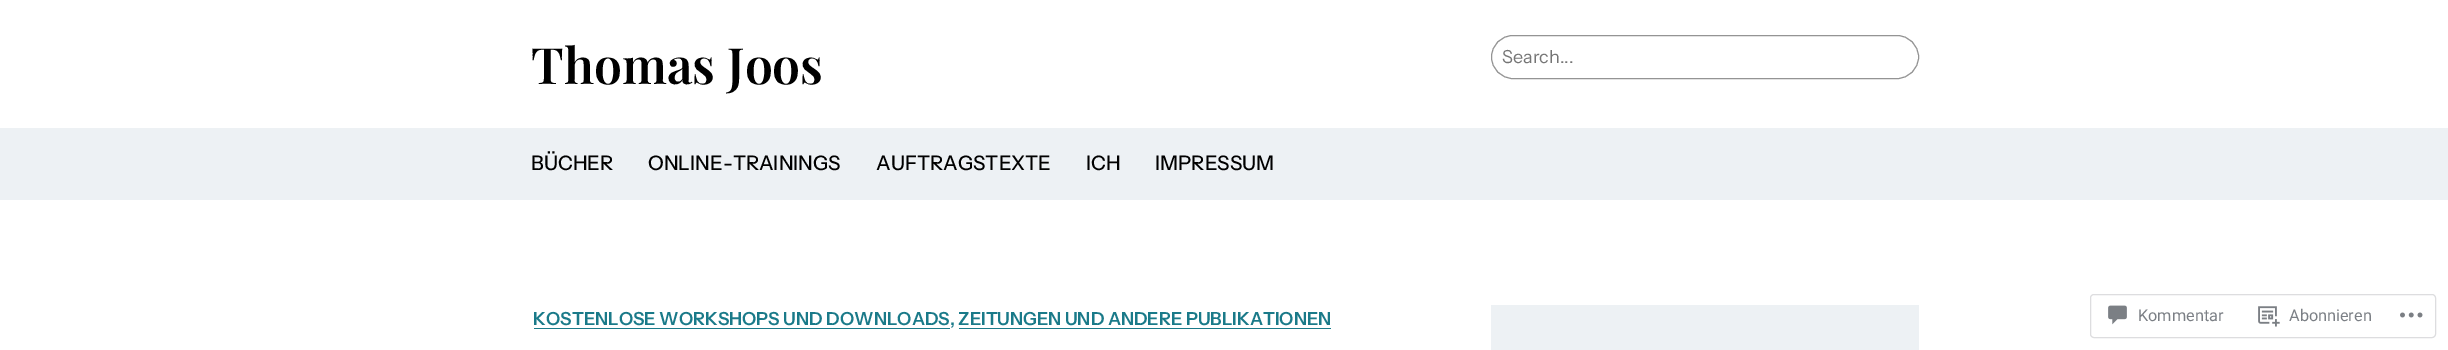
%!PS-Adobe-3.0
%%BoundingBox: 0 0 2448 350
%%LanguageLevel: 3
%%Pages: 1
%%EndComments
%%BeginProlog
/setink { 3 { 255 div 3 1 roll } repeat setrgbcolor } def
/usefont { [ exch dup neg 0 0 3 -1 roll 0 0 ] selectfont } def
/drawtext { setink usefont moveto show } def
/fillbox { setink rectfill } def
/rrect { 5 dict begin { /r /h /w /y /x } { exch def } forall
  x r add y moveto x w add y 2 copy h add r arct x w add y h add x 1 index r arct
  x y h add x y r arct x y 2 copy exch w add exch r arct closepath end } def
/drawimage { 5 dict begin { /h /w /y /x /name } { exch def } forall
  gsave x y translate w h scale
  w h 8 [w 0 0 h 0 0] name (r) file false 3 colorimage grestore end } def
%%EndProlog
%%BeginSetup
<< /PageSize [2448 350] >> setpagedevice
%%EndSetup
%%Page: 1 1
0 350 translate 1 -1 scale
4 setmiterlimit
0 0 2448 350 255 255 255 fillbox
(Thomas Joos) 531 84 /PlayfairDisplay-SemiBold 50 0 0 0 drawtext
148 148 148 setink
1491.5 35.5 427 43 21.5 rrect stroke
(Search...) 1502 63 /InstrumentSans-Regular 18 117 117 117 drawtext
0 128 2448 72 237 241 244 fillbox
(BÜCHER) 531 170 /InstrumentSans-Medium 20 0 0 0 drawtext
(ONLINE-TRAININGS) 648 170 /InstrumentSans-Medium 20 0 0 0 drawtext
(AUFTRAGSTEXTE) 876 170 /InstrumentSans-Medium 20 0 0 0 drawtext
(ICH) 1086 170 /InstrumentSans-Medium 20 0 0 0 drawtext
(IMPRESSUM) 1155 170 /InstrumentSans-Medium 20 0 0 0 drawtext
(KOSTENLOSE WORKSHOPS UND DOWNLOADS, ZEITUNGEN UND ANDERE PUBLIKATIONEN) 533 325 /InstrumentSans-SemiBold 18 26 122 137 drawtext
534 328 416 1 26 122 137 fillbox
959 328 372 1 26 122 137 fillbox
1491 305 428 45 237 241 244 fillbox
221 221 223 setink
2090.5 294.5 345 43 3.5 rrect stroke
(assets/img1.rgb) 2108 305 19 20 drawimage
(Kommentar) 2138 321 /Roboto-Regular 16.25 123 127 133 drawtext
(assets/img2.rgb) 2258 306 22 21 drawimage
(Abonnieren) 2289 321 /Roboto-Regular 16.25 123 127 133 drawtext
(assets/img3.rgb) 2400 312 23 6 drawimage
showpage
%%EOF
